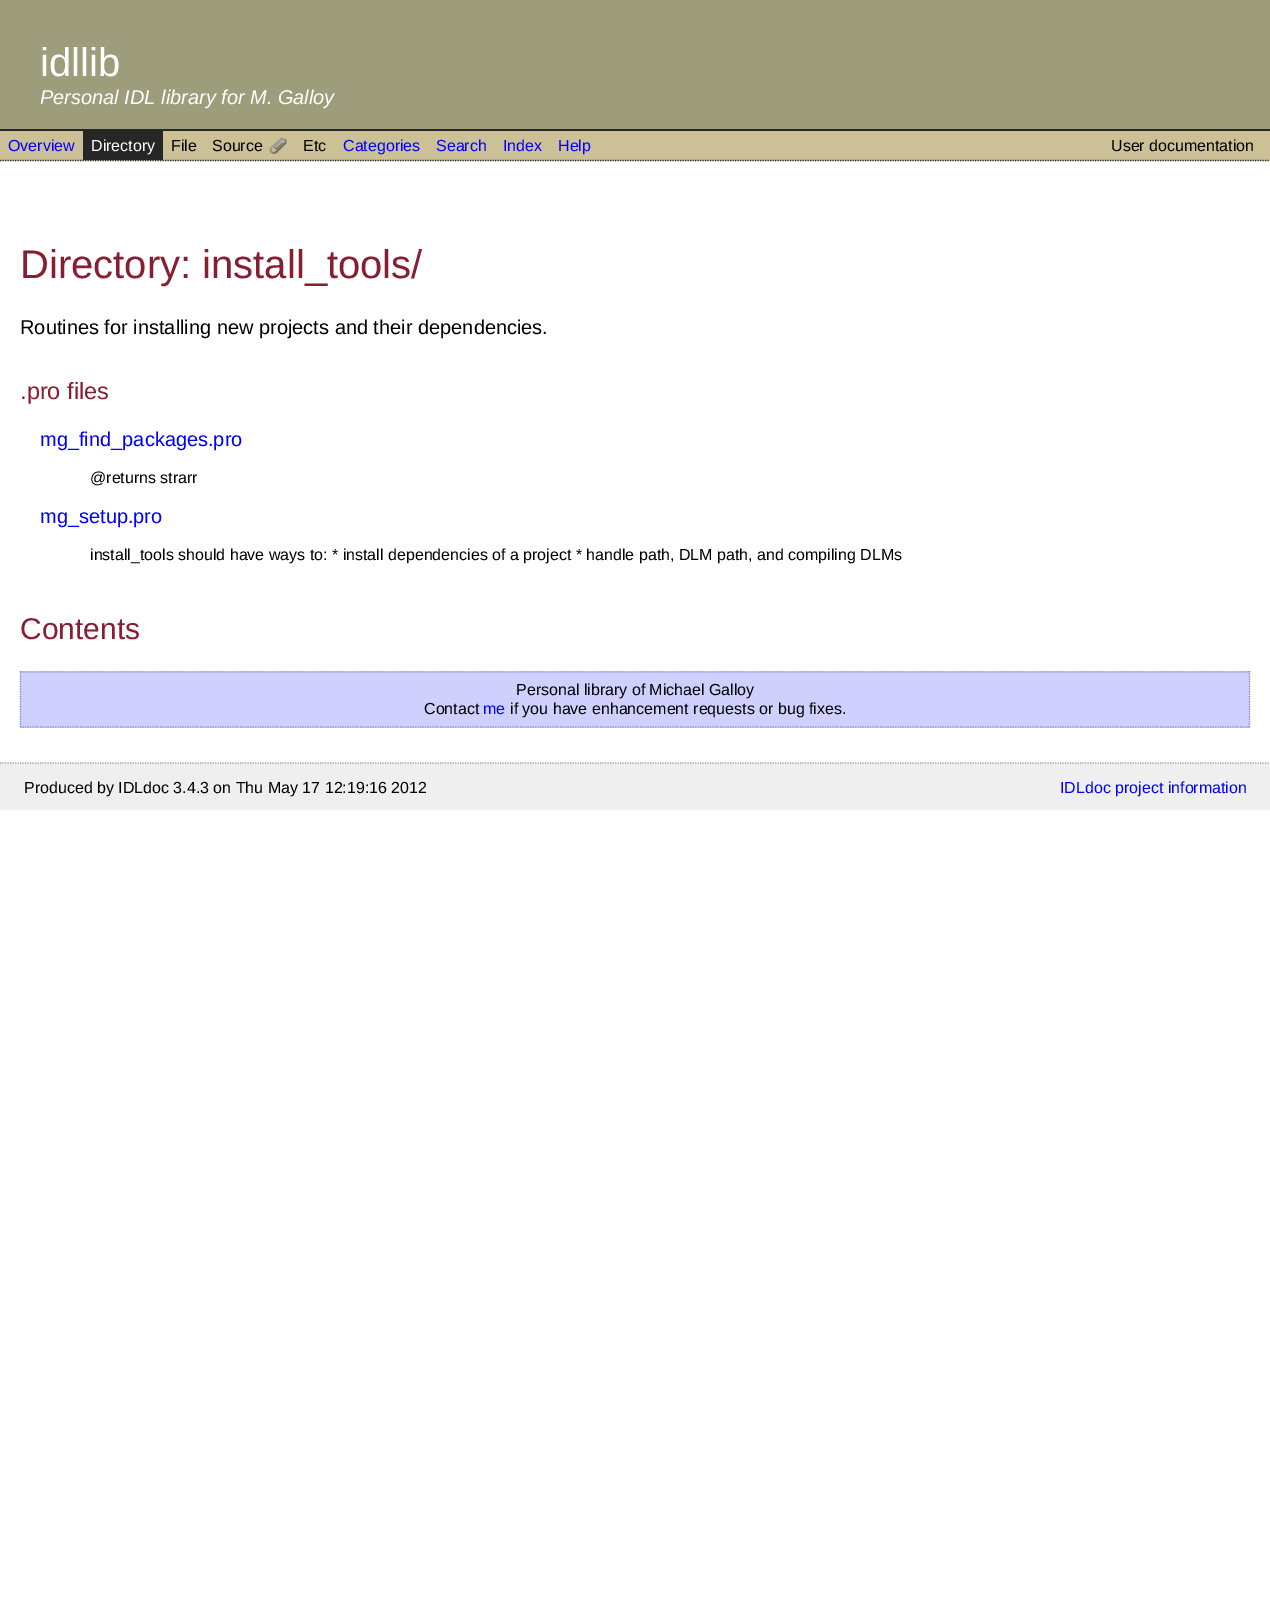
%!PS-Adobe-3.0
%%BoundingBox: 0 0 1270 1620
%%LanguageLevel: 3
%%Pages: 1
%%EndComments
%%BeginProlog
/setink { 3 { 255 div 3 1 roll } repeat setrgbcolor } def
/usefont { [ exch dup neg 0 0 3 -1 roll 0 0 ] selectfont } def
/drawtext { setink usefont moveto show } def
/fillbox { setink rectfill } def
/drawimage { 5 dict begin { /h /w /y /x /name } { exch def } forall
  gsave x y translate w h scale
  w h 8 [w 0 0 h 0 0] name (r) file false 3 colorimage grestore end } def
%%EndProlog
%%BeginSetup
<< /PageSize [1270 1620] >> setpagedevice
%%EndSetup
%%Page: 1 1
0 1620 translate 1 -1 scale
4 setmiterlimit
0 0 1270 1620 255 255 255 fillbox
0 0 1270 129 158 157 123 fillbox
0 129 1270 2 38 38 38 fillbox
(idllib) 40 76 /LiberationSans-Regular 40 255 255 255 drawtext
(Personal IDL library for M. Galloy) 40 104 /LiberationSans-Italic 20 255 255 255 drawtext
0 131 1270 30 204 192 151 fillbox
38 38 38 setink
1.2 setlinewidth
[1.25 1.25] 0 setdash
0 160.5 moveto 1270 160.5 lineto stroke
(Overview) 8 151 /LiberationSans-Regular 16 0 0 255 drawtext
83 131 80 29 38 38 38 fillbox
(Directory) 91 151 /LiberationSans-Regular 16 255 255 255 drawtext
(File) 171 151 /LiberationSans-Regular 16 0 0 0 drawtext
(Source) 212 151 /LiberationSans-Regular 16 0 0 0 drawtext
(assets/img1.rgb) 268 137 19 17 drawimage
(Etc) 303 151 /LiberationSans-Regular 16 0 0 0 drawtext
(Categories) 343 151 /LiberationSans-Regular 16 0 0 255 drawtext
(Search) 436 151 /LiberationSans-Regular 16 0 0 255 drawtext
(Index) 503 151 /LiberationSans-Regular 16 0 0 255 drawtext
(Help) 558 151 /LiberationSans-Regular 16 0 0 255 drawtext
(User documentation) 1111 151 /LiberationSans-Regular 16 0 0 0 drawtext
(Directory: install_tools/) 20 278 /LiberationSans-Regular 40 135 30 49 drawtext
(Routines for installing new projects and their dependencies.) 20 334 /LiberationSans-Regular 20 0 0 0 drawtext
(.pro files) 20 399 /LiberationSans-Regular 23.5 135 30 49 drawtext
(mg_find_packages.pro) 40 446 /LiberationSans-Regular 20 0 0 255 drawtext
(@returns strarr) 90 483 /LiberationSans-Regular 16 0 0 0 drawtext
(mg_setup.pro) 40 523 /LiberationSans-Regular 20 0 0 255 drawtext
(install_tools should have ways to: * install dependencies of a project * handle path, DLM path, and compiling DLMs) 90 560 /LiberationSans-Regular 16 0 0 0 drawtext
(Contents) 20 639 /LiberationSans-Regular 30 135 30 49 drawtext
20 671 1230 57 208 208 255 fillbox
144 144 192 setink
20 672 moveto 1250 672 lineto stroke
1249.5 671 moveto 1249.5 727.5 lineto stroke
20 727 moveto 1250 727 lineto stroke
20.5 671 moveto 20.5 727.5 lineto stroke
(Personal library of Michael Galloy) 516 695 /LiberationSans-Regular 16 0 0 0 drawtext
(Contact) 424 714 /LiberationSans-Regular 16 0 0 0 drawtext
(me) 483 714 /LiberationSans-Regular 16 0 0 255 drawtext
(if you have enhancement requests or bug fixes.) 510 714 /LiberationSans-Regular 16 0 0 0 drawtext
0 763 1270 47 239 239 239 fillbox
160 160 160 setink
0 763 moveto 1270 763 lineto stroke
(Produced by IDLdoc 3.4.3 on Thu May 17 12:19:16 2012) 24 793 /LiberationSans-Regular 16 0 0 0 drawtext
(IDLdoc project information) 1060 793 /LiberationSans-Regular 16 0 0 255 drawtext
showpage
%%EOF
